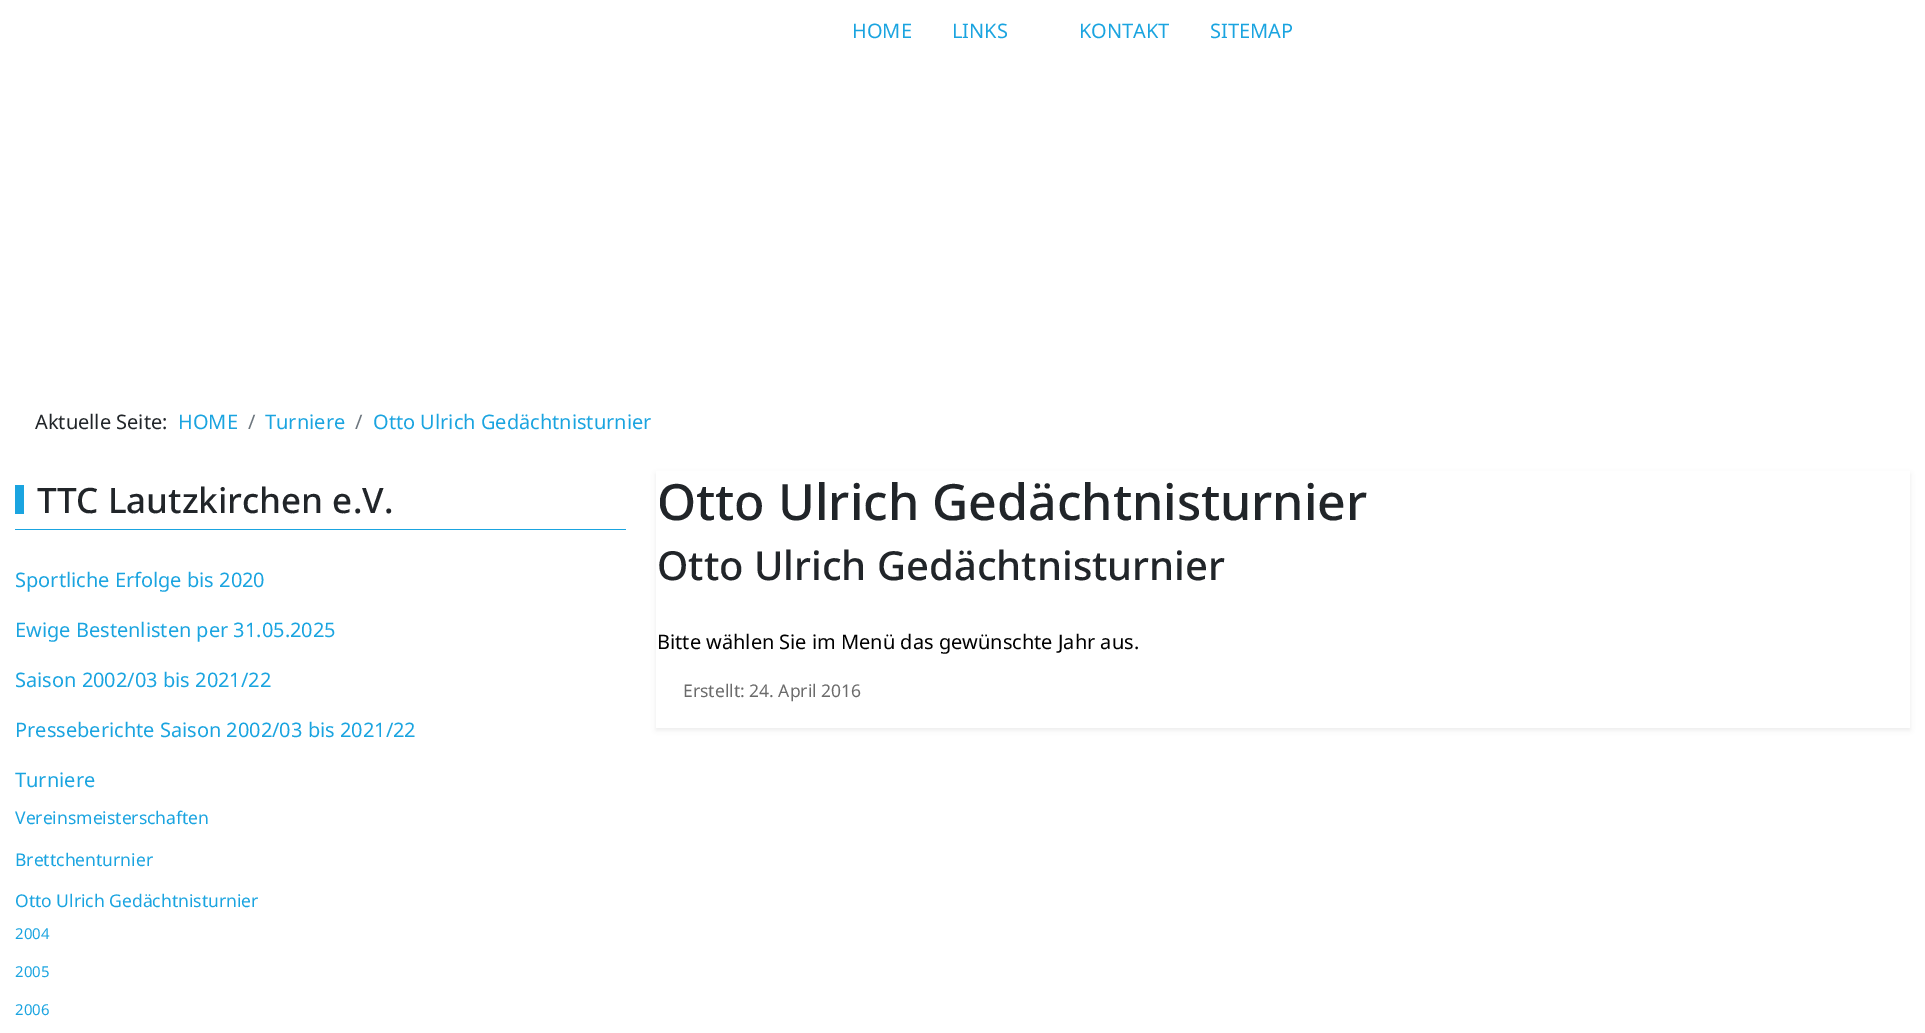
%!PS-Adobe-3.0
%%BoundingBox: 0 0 1925 1033
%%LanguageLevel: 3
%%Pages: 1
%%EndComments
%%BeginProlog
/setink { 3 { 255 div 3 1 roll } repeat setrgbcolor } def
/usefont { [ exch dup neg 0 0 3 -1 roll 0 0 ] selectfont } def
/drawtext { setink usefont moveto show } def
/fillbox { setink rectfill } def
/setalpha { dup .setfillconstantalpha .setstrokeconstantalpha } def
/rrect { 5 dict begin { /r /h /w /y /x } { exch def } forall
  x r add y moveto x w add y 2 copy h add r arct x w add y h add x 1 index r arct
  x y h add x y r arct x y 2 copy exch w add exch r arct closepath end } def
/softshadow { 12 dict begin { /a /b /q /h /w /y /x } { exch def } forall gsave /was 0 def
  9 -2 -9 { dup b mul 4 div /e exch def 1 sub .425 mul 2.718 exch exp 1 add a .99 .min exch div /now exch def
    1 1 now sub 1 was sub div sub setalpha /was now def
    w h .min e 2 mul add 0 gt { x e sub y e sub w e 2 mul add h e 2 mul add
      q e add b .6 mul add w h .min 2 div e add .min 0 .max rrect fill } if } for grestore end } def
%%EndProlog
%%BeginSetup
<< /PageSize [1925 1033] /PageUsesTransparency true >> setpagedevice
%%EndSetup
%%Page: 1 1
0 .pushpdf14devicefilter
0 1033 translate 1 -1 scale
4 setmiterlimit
0 0 1925 1033 255 255 255 fillbox
(HOME) 852 38 /NotoSans-Regular 20 26 164 224 drawtext
(LINKS) 952 38 /NotoSans-Regular 20 26 164 224 drawtext
(KONTAKT) 1079 38 /NotoSans-Regular 20 26 164 224 drawtext
(SITEMAP) 1210 38 /NotoSans-Regular 20 26 164 224 drawtext
(Aktuelle Seite:) 35 429 /NotoSans-Regular 20 33 37 41 drawtext
(HOME) 178 429 /NotoSans-Regular 20 26 164 224 drawtext
(/) 248 429 /NotoSans-Regular 20 108 117 125 drawtext
(Turniere) 265 429 /NotoSans-Regular 20 26 164 224 drawtext
(/) 355 429 /NotoSans-Regular 20 108 117 125 drawtext
(Otto Ulrich Gedächtnisturnier) 373 429 /NotoSans-Regular 20 26 164 224 drawtext
15 529 611 1 26 164 224 fillbox
15 485 9 29 26 164 224 fillbox
(TTC Lautzkirchen e.V.) 37 513 /NotoSans-Medium 35 33 37 41 drawtext
(Sportliche Erfolge bis 2020) 15 587 /NotoSans-Regular 20 26 164 224 drawtext
(Ewige Bestenlisten per 31.05.2025) 15 637 /NotoSans-Regular 20 26 164 224 drawtext
(Saison 2002/03 bis 2021/22) 15 687 /NotoSans-Regular 20 26 164 224 drawtext
(Presseberichte Saison 2002/03 bis 2021/22) 15 737 /NotoSans-Regular 20 26 164 224 drawtext
(Turniere) 15 787 /NotoSans-Regular 20 26 164 224 drawtext
(Vereinsmeisterschaften) 15 824 /NotoSans-Regular 17.5 26 164 224 drawtext
(Brettchenturnier) 15 866 /NotoSans-Regular 17.5 26 164 224 drawtext
(Otto Ulrich Gedächtnisturnier) 15 907 /NotoSans-Regular 17.5 26 164 224 drawtext
(2004) 15 939 /NotoSans-Regular 15 26 164 224 drawtext
(2005) 15 977 /NotoSans-Regular 15 26 164 224 drawtext
(2006) 15 1015 /NotoSans-Regular 15 26 164 224 drawtext
gsave
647 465 moveto 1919 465 lineto 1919 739 lineto 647 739 lineto closepath 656 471 moveto 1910 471 lineto 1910 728 lineto 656 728 lineto closepath eoclip newpath
0 0 0 setink
656 474 1254 256 0 2.5 0.07 softshadow
grestore
(Otto Ulrich Gedächtnisturnier) 657 520 /NotoSans-Medium 50 33 37 41 drawtext
(Otto Ulrich Gedächtnisturnier) 657 580 /NotoSans-Medium 40 33 37 41 drawtext
(Bitte wählen Sie im Menü das gewünschte Jahr aus.) 657 649 /NotoSans-Regular 20 0 0 0 drawtext
(Erstellt: 24. April 2016) 683 697 /NotoSans-Regular 17.5 107 107 107 drawtext
.poppdf14devicefilter showpage
%%EOF
